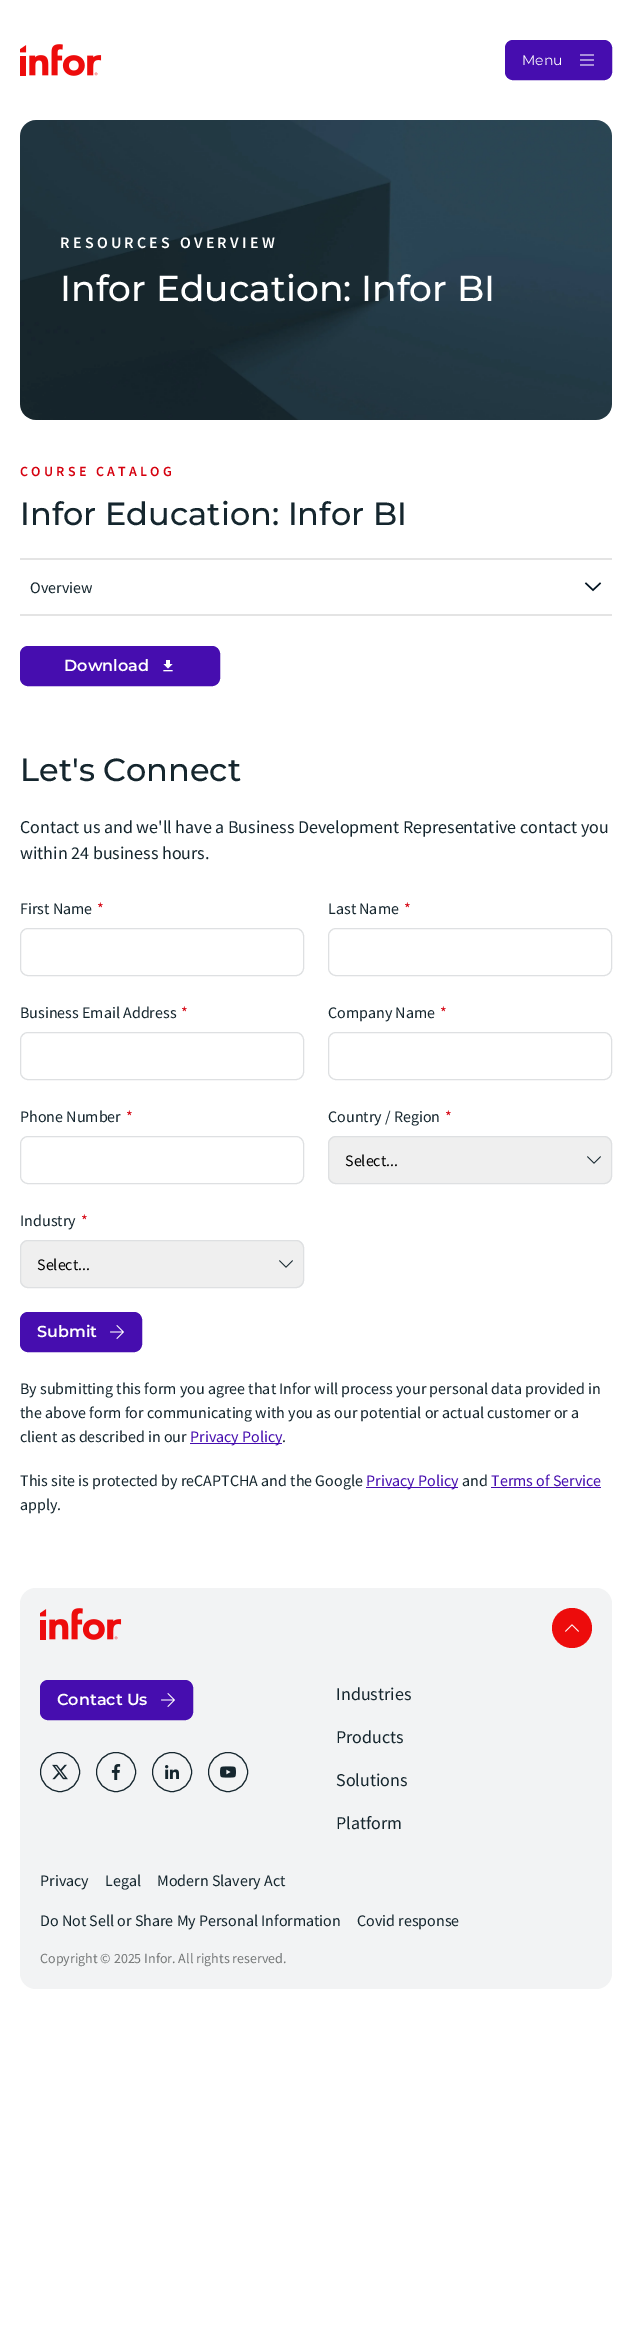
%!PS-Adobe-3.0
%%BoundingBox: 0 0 632 2333
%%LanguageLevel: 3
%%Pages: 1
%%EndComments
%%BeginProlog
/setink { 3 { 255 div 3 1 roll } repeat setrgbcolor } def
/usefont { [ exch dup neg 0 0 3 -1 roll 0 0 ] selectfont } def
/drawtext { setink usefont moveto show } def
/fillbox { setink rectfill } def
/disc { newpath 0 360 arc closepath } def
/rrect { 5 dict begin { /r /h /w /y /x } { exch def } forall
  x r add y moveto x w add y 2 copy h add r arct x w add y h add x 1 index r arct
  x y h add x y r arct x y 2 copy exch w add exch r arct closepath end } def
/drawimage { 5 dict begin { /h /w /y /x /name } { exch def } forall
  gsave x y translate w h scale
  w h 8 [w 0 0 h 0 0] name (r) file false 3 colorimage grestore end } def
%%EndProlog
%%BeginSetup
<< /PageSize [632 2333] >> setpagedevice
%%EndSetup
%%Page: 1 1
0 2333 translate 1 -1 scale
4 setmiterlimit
0 0 632 2333 255 255 255 fillbox
(assets/img1.rgb) 20 44 82 32 drawimage
70 13 175 setink
505.5 40.5 106 39 7.5 rrect gsave fill grestore
stroke
(Menu) 522 65 /Montserrat-Regular 14 255 255 255 drawtext
(assets/img2.rgb) 580 54 14 12 drawimage
(assets/img3.rgb) 20 120 592 300 drawimage
/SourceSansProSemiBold-SemiBold 16 usefont
60 248 moveto 3.25 0 (RESOURCES OVERVIEW) ashow
(Infor Education: Infor BI) 60 301 /Montserrat-Medium 36 255 255 255 drawtext
/SourceSansProSemiBold-SemiBold 14 usefont
213 0 14 setink
20 476 moveto 3.25 0 (COURSE CATALOG) ashow
(Infor Education: Infor BI) 20 525 /Montserrat-Medium 32 21 38 46 drawtext
20 558 592 2 228 228 228 fillbox
20 614 592 2 228 228 228 fillbox
(Overview) 30 593 /SourceSansPro-Regular 16 21 38 46 drawtext
(assets/img4.rgb) 584 582 18 10 drawimage
70 13 175 setink
20.5 646.5 199 39 7.5 rrect gsave fill grestore
stroke
(Download) 64 671 /Montserrat-SemiBold 16 255 255 255 drawtext
(assets/img5.rgb) 163 660 10 12 drawimage
(Let's Connect) 20 781 /Montserrat-Medium 32 21 38 46 drawtext
(Contact us and we'll have a Business Development Representative contact you) 20 833 /SourceSansPro-Regular 18 21 38 46 drawtext
(within 24 business hours.) 20 859 /SourceSansPro-Regular 18 21 38 46 drawtext
(First Name) 20 914 /SourceSansPro-Regular 16 21 38 46 drawtext
(*) 97 914 /SourceSansPro-Regular 16 213 0 14 drawtext
222 224 226 setink
20.5 928.5 283 47 7.5 rrect stroke
(Last Name) 328 914 /SourceSansPro-Regular 16 21 38 46 drawtext
(*) 404 914 /SourceSansPro-Regular 16 213 0 14 drawtext
222 224 226 setink
328.5 928.5 283 47 7.5 rrect stroke
(Business Email Address) 20 1018 /SourceSansPro-Regular 16 21 38 46 drawtext
(*) 181 1018 /SourceSansPro-Regular 16 213 0 14 drawtext
222 224 226 setink
20.5 1032.5 283 47 7.5 rrect stroke
(Company Name) 328 1018 /SourceSansPro-Regular 16 21 38 46 drawtext
(*) 440 1018 /SourceSansPro-Regular 16 213 0 14 drawtext
222 224 226 setink
328.5 1032.5 283 47 7.5 rrect stroke
(Phone Number) 20 1122 /SourceSansPro-Regular 16 21 38 46 drawtext
(*) 126 1122 /SourceSansPro-Regular 16 213 0 14 drawtext
222 224 226 setink
20.5 1136.5 283 47 7.5 rrect stroke
(Country / Region) 328 1122 /SourceSansPro-Regular 16 21 38 46 drawtext
(*) 445 1122 /SourceSansPro-Regular 16 213 0 14 drawtext
239 239 239 setink
328 1136 284 48 8 rrect fill
(assets/img6.rgb) 587 1156 14 8 drawimage
222 224 226 setink
328.5 1136.5 283 47 7.5 rrect stroke
(Select...) 345 1166 /SourceSansPro-Regular 16 0 0 0 drawtext
(Industry) 20 1226 /SourceSansPro-Regular 16 21 38 46 drawtext
(*) 81 1226 /SourceSansPro-Regular 16 213 0 14 drawtext
239 239 239 setink
20 1240 284 48 8 rrect fill
(assets/img6.rgb) 279 1260 14 8 drawimage
222 224 226 setink
20.5 1240.5 283 47 7.5 rrect stroke
(Select...) 37 1270 /SourceSansPro-Regular 16 0 0 0 drawtext
70 13 175 setink
20.5 1312.5 121 39 7.5 rrect gsave fill grestore
stroke
(Submit) 37 1337 /Montserrat-SemiBold 16 255 255 255 drawtext
(assets/img7.rgb) 110 1325 14 14 drawimage
(By submitting this form you agree that Infor will process your personal data provided in) 20 1394 /SourceSansPro-Regular 16 21 38 46 drawtext
(the above form for communicating with you as our potential or actual customer or a) 20 1418 /SourceSansPro-Regular 16 21 38 46 drawtext
(client as described in our) 20 1442 /SourceSansPro-Regular 16 21 38 46 drawtext
190 1443 92 1 70 13 175 fillbox
(Privacy Policy) 190 1442 /SourceSansPro-Regular 16 70 13 175 drawtext
(.) 282 1442 /SourceSansPro-Regular 16 21 38 46 drawtext
(This site is protected by reCAPTCHA and the Google) 20 1486 /SourceSansPro-Regular 16 21 38 46 drawtext
366 1487 92 1 70 13 175 fillbox
(Privacy Policy) 366 1486 /SourceSansPro-Regular 16 70 13 175 drawtext
(and) 462 1486 /SourceSansPro-Regular 16 21 38 46 drawtext
(Terms of Service) 491 1486 /SourceSansPro-Regular 16 70 13 175 drawtext
491 1487 110 1 70 13 175 fillbox
(apply.) 20 1510 /SourceSansPro-Regular 16 21 38 46 drawtext
242 243 244 setink
20 1588 592 401 16 rrect fill
(assets/img8.rgb) 40 1608 82 32 drawimage
237 12 12 setink
572 1628 20 disc fill
(assets/img9.rgb) 565 1624 14 8 drawimage
70 13 175 setink
40.5 1680.5 152 39 7.5 rrect gsave fill grestore
stroke
(Contact Us) 57 1705 /Montserrat-SemiBold 16 255 255 255 drawtext
(assets/img7.rgb) 161 1693 14 14 drawimage
21 38 46 setink
60 1772 19.5 disc stroke
(assets/img10.rgb) 52 1764 16 16 drawimage
116 1772 19.5 disc stroke
(assets/img11.rgb) 111 1764 10 16 drawimage
172 1772 19.5 disc stroke
(assets/img12.rgb) 165 1765 14 14 drawimage
228 1772 19.5 disc stroke
(assets/img13.rgb) 220 1766 16 12 drawimage
(Industries) 336 1700 /SourceSansPro-Regular 18 21 38 46 drawtext
(Products) 336 1743 /SourceSansPro-Regular 18 21 38 46 drawtext
(Solutions) 336 1786 /SourceSansPro-Regular 18 21 38 46 drawtext
(Platform) 336 1829 /SourceSansPro-Regular 18 21 38 46 drawtext
(Privacy) 40 1886 /SourceSansPro-Regular 16 21 38 46 drawtext
(Legal) 105 1886 /SourceSansPro-Regular 16 21 38 46 drawtext
(Modern Slavery Act) 157 1886 /SourceSansPro-Regular 16 21 38 46 drawtext
(Do Not Sell or Share My Personal Information) 40 1926 /SourceSansPro-Regular 16 21 38 46 drawtext
(Covid response) 357 1926 /SourceSansPro-Regular 16 21 38 46 drawtext
(Copyright © 2025 Infor. All rights reserved.) 40 1963 /SourceSansPro-Regular 14 116 119 119 drawtext
showpage
%%EOF
